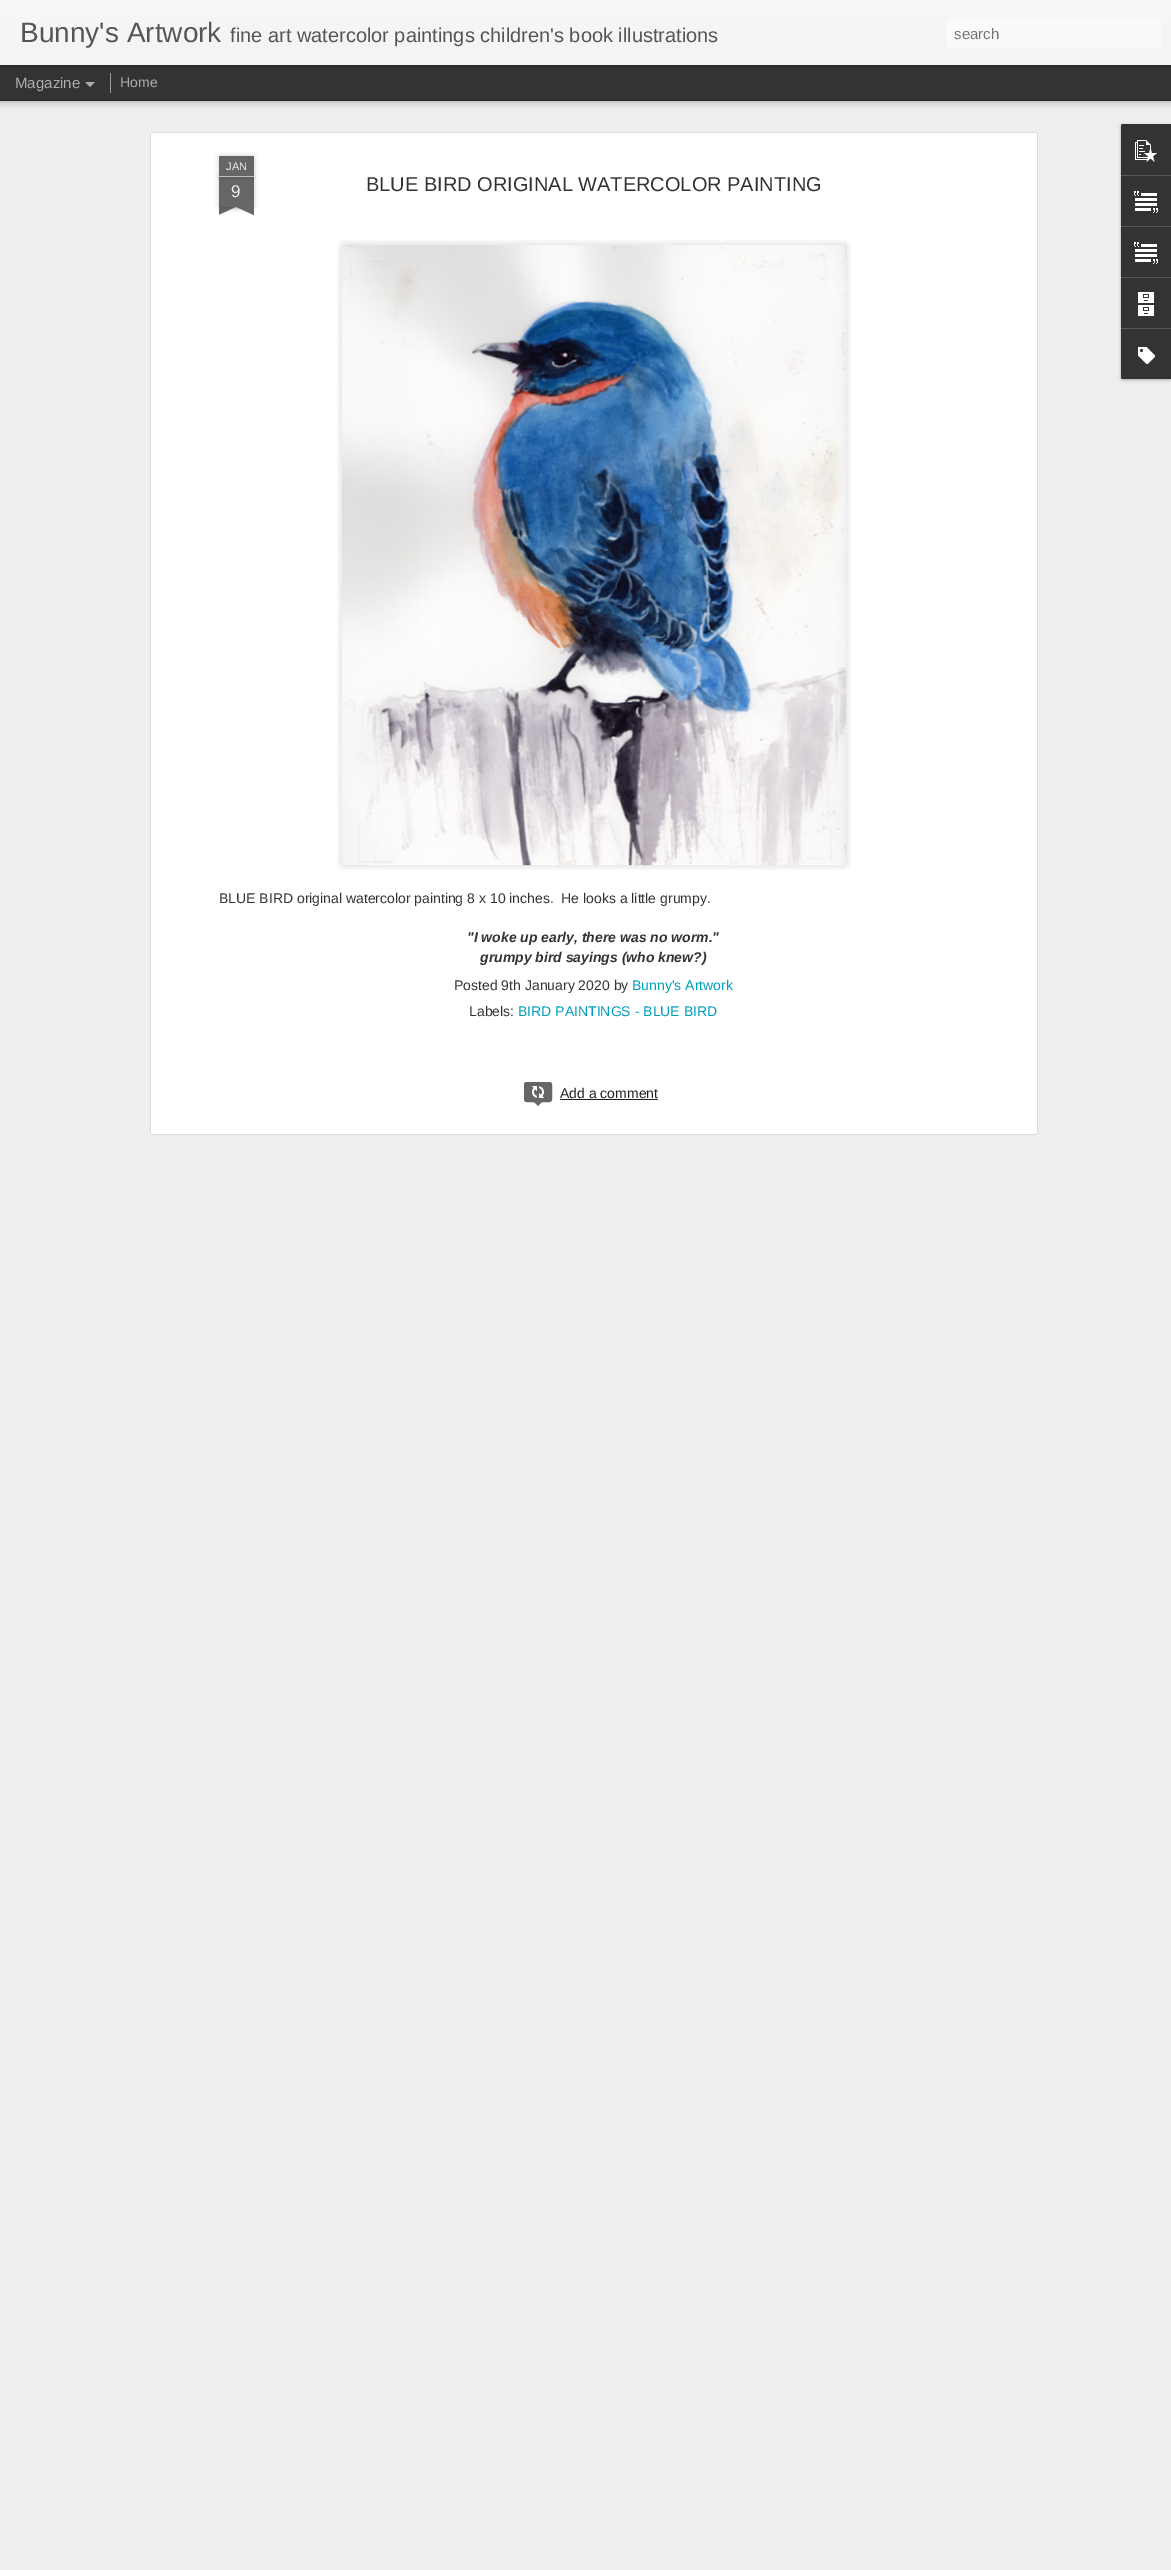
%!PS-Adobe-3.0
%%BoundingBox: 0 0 1171 2570
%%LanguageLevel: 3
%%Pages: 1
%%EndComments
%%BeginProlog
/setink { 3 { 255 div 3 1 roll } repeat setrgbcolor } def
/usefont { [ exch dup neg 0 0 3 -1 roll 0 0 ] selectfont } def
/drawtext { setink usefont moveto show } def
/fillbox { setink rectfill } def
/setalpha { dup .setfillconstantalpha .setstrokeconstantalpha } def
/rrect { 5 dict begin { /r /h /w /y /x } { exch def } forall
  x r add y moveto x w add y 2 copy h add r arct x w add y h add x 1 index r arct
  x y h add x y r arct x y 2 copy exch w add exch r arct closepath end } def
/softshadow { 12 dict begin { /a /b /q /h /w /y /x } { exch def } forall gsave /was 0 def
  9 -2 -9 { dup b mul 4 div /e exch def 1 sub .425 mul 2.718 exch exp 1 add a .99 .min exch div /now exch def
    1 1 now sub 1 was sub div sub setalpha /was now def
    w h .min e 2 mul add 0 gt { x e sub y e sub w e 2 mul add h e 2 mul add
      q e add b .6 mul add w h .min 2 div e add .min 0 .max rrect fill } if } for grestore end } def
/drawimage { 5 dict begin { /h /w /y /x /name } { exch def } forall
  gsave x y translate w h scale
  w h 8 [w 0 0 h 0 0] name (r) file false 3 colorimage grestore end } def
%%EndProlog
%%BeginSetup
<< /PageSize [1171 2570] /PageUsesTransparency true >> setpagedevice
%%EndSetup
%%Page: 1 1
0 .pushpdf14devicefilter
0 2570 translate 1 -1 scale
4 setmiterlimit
0 0 1171 2570 51 51 51 fillbox
0 101 1171 2469 238 238 238 fillbox
0 0 0 setink
0 65 1171 35 0 4 0.5 softshadow
0 65 1171 35 51 51 51 fillbox
110 73 1 20 153 153 153 fillbox
0 0 0 setink
0 0 1171 65 0 2.5 0.3 softshadow
gsave 0 0 moveto 1171 0 lineto 1171 65 lineto 0 65 lineto closepath clip newpath
<< /ShadingType 2 /ColorSpace /DeviceRGB /Coords [0 0 0 65] /Extend [true true] /Function << /FunctionType 2 /Domain [0 1] /C0 [0.969 0.969 0.969] /C1 [0.957 0.957 0.957] /N 1 >> >> shfill grestore
(Bunny's Artwork) 20 42 /LiberationSans-Regular 28 85 85 85 drawtext
(fine art watercolor paintings children's book illustrations) 230 42 /LiberationSans-Regular 20 85 85 85 drawtext
250 250 250 setink
947 18 214 30 3 rrect fill
(search) 954 39 /LiberationSans-Regular 15 117 117 117 drawtext
(Magazine) 15 88 /LiberationSans-Regular 15 173 173 173 drawtext
85 82 moveto 95 82 lineto 90 87 lineto closepath fill
(Home) 120 87 /LiberationSans-Regular 14 173 173 173 drawtext
149 131 890 1005 255 255 255 fillbox
(assets/img1.rgb) 149 131 890 1005 drawimage
0 0 0 setink
219 177 35 30 0 2.5 0.2 softshadow
219 177 35 30 102 102 102 fillbox
0 0 0 setink
219 156 35 21 1 2.5 0.2 softshadow
102 102 102 setink
220 156 moveto 253 156 lineto 253.5 156 254 156.5 254 157 curveto 254 177 lineto 219 177 lineto 219 157 lineto 219 156.5 219.5 156 220 156 curveto closepath fill
219 176 35 1 194 194 194 fillbox
(JAN) 226 170 /LiberationSans-Regular 11 238 238 238 drawtext
(9) 231 197 /LiberationSans-Regular 17 238 238 238 drawtext
gsave
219 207 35 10 rectclip
0 0 0 setink
210 197 50 10 0 2.5 0.2 softshadow
grestore
gsave
219 207 35 10 rectclip
102 102 102 setink
210 208 moveto 255 187 lineto 259 196 lineto 214 217 lineto closepath fill
grestore
gsave
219 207 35 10 rectclip
0 0 0 setink
213 197 50 10 0 2.5 0.2 softshadow
grestore
gsave
219 207 35 10 rectclip
102 102 102 setink
217 187 moveto 262 208 lineto 258 217 lineto 213 196 lineto closepath fill
grestore
(BLUE BIRD ORIGINAL WATERCOLOR PAINTING) 366 191 /LiberationSans-Regular 20 51 51 51 drawtext
(assets/img2.rgb) 337 240 514 630 drawimage
(assets/img3.rgb) 368 247 479 619 drawimage
(BLUE BIRD original watercolor painting 8 x 10 inches.  He looks a little grumpy.) 219 903 /LiberationSans-Regular 14 51 51 51 drawtext
("I woke up early, there was no worm.") 467 942 /LiberationSans-BoldItalic 14 51 51 51 drawtext
(grumpy bird sayings \(who knew?\)) 480 962 /LiberationSans-BoldItalic 14 51 51 51 drawtext
(Posted 9th January 2020 by) 454 990 /LiberationSans-Regular 14 51 51 51 drawtext
(Bunny's Artwork) 632 990 /LiberationSans-Regular 14 0 158 184 drawtext
(Labels:) 469 1016 /LiberationSans-Regular 14 51 51 51 drawtext
(BIRD PAINTINGS - BLUE BIRD) 518 1016 /LiberationSans-Regular 14 0 158 184 drawtext
102 102 102 setink
524 1082 28 20 3 rrect fill
(assets/img4.rgb) 532 1086 12 12 drawimage
524.5 1082.5 27 19 2.5 rrect stroke
533 1101 moveto 543 1101 lineto 538 1106 lineto closepath fill
(Add a comment) 560 1098 /LiberationSans-Regular 14 34 34 34 drawtext
560 1099 98 1 34 34 34 fillbox
0 0 0 setink
1121 125 50 255 2 1.5 0.3 softshadow
51 51 51 setink
1123 124 moveto 1171 124 lineto 1171 379 lineto 1123 379 lineto 1122 379 1121 378 1121 377 curveto 1121 126 lineto 1121 125 1122 124 1123 124 curveto closepath fill
1123 124 moveto 1171 124 lineto 1171 175 lineto 1121 175 lineto 1121 126 lineto 1121 125 1122 124 1123 124 curveto closepath fill
(assets/img5.rgb) 1135 140 22 22 drawimage
1121 175 50 1 88 88 88 fillbox
(assets/img6.rgb) 1134 191 24 22 drawimage
1121 226 50 1 88 88 88 fillbox
(assets/img6.rgb) 1134 242 24 22 drawimage
1121 277 50 1 88 88 88 fillbox
(assets/img7.rgb) 1138 292 16 24 drawimage
51 51 51 setink
1121 328 moveto 1171 328 lineto 1171 379 lineto 1123 379 lineto 1122 379 1121 378 1121 377 curveto closepath fill
1121 328 50 1 88 88 88 fillbox
(assets/img8.rgb) 1138 347 17 17 drawimage
.poppdf14devicefilter showpage
%%EOF
